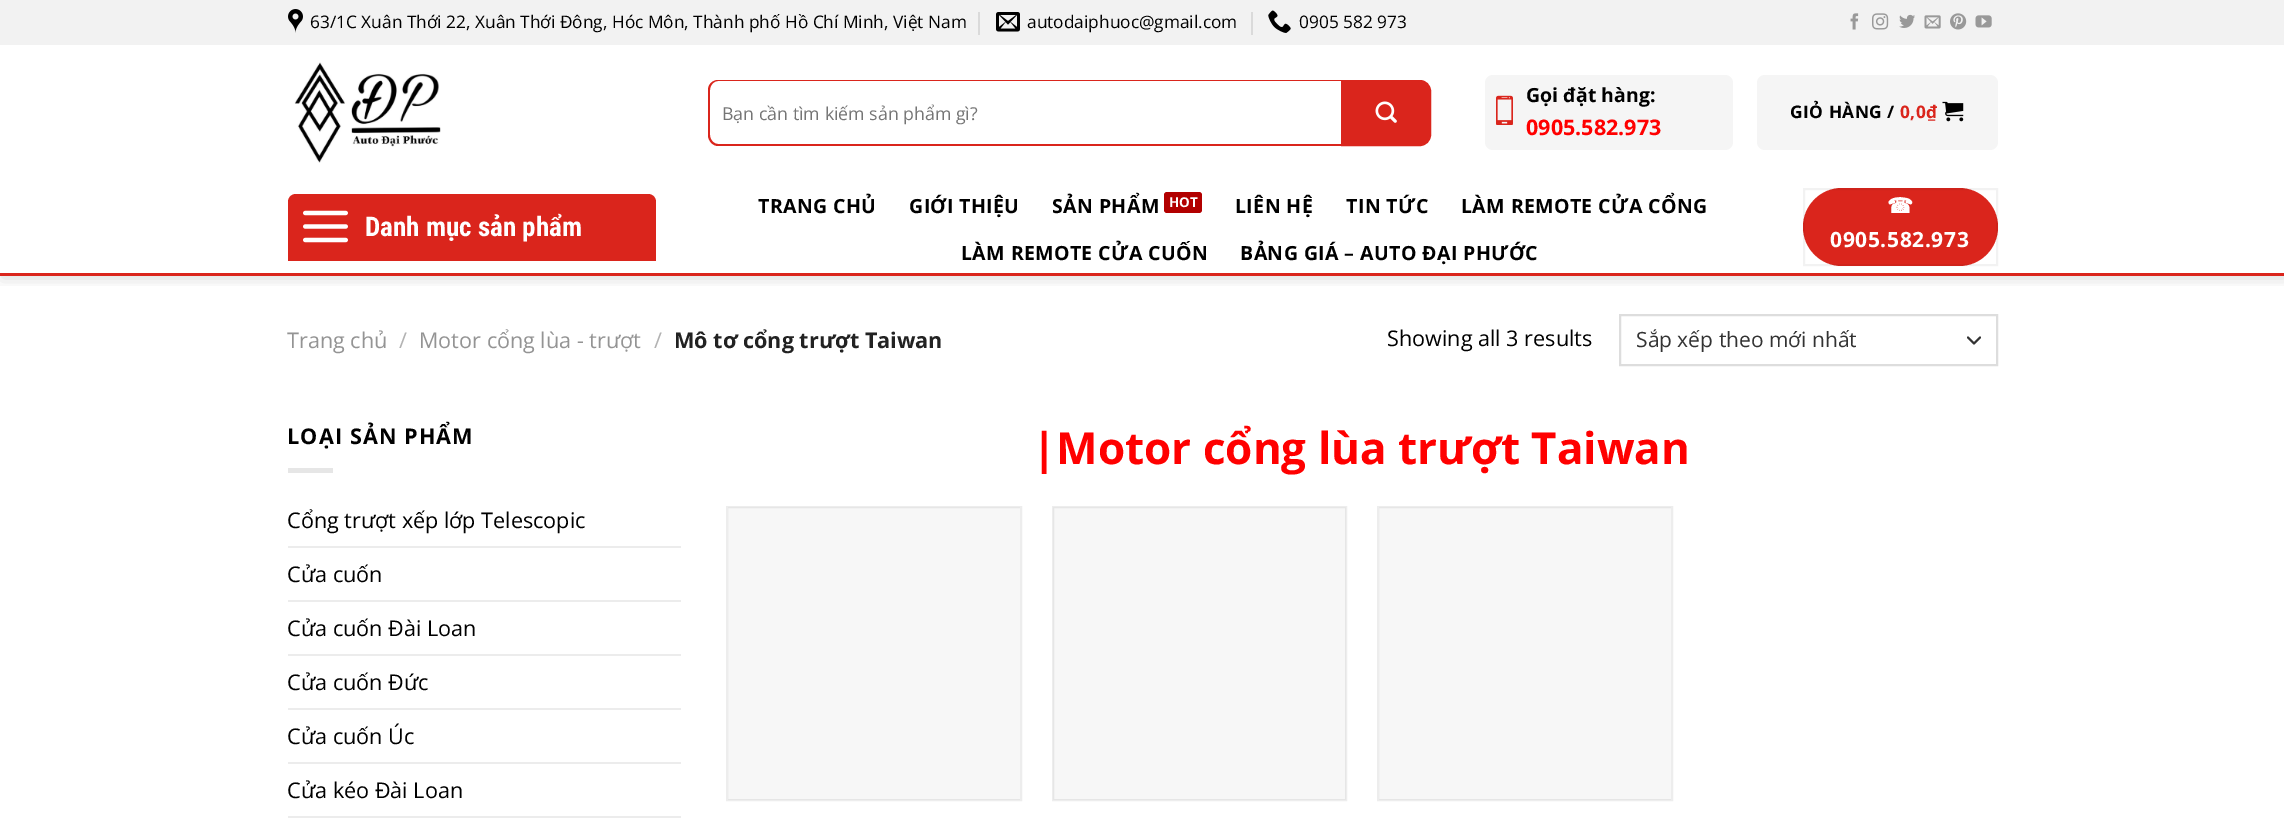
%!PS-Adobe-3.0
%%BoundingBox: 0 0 2284 833
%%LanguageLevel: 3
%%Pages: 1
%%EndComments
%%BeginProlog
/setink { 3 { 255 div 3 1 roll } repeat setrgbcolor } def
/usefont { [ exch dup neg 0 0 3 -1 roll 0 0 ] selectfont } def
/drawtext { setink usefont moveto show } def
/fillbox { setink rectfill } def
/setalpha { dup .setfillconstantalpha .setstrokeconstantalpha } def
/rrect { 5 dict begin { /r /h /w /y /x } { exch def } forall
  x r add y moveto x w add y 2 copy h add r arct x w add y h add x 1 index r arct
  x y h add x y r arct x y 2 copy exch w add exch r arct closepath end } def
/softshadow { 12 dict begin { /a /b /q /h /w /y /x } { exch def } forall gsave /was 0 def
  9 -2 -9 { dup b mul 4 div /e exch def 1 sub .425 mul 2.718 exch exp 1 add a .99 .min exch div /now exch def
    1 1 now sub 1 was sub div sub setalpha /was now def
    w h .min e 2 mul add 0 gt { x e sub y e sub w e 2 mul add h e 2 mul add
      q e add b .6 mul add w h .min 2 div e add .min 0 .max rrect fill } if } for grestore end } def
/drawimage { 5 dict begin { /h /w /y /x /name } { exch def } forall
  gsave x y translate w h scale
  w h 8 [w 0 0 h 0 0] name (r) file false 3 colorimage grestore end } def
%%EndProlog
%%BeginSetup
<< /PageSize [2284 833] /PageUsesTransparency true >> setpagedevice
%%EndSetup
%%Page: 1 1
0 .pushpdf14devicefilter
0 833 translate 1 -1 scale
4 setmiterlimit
0 0 2284 833 255 255 255 fillbox
gsave
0 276 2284 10 rectclip
0 0 0 setink
2 2 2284 276 0 7.5 0.15 softshadow
grestore
0 0 2284 45 242 242 242 fillbox
(assets/img1.rgb) 288 9 15 24 drawimage
(63/1C Xuân Thới 22, Xuân Thới Đông, Hóc Môn, Thành phố Hồ Chí Minh, Việt Nam) 310 28 /OpenSans-Regular 17.3 0 0 0 drawtext
978 12 2 23 218 218 218 fillbox
(assets/img2.rgb) 996 12 24 20 drawimage
(autodaiphuoc@gmail.com) 1027 28 /OpenSans-Regular 17.3 0 0 0 drawtext
1251 12 2 23 218 218 218 fillbox
(assets/img3.rgb) 1268 10 23 23 drawimage
(0905 582 973) 1299 28 /OpenSans-Regular 17.3 0 0 0 drawtext
(assets/img4.rgb) 1850 13 9 17 drawimage
(assets/img5.rgb) 1872 13 17 17 drawimage
(assets/img6.rgb) 1899 14 16 14 drawimage
(assets/img7.rgb) 1924 15 17 14 drawimage
(assets/img8.rgb) 1950 13 17 17 drawimage
(assets/img9.rgb) 1975 15 17 13 drawimage
(assets/img10.rgb) 294 62 147 101 drawimage
218 37 28 setink
718 80 moveto 1341 80 lineto 1341 146 lineto 718 146 lineto 713 146 708 141 708 135 curveto 708 90 lineto 708 84 713 80 718 80 curveto closepath 718 81 moveto 1341 81 lineto 1341 144 lineto 718 144 lineto 714 144 710 140 710 135 curveto 710 90 lineto 710 85 714 81 718 81 curveto closepath eofill
(Bạn cần tìm kiếm sản phẩm gì?) 722 120 /OpenSans-Regular 17.75 117 117 117 drawtext
218 37 28 setink
1342 81 moveto 1420 81 lineto 1425.5 81 1430 85.5 1430 91 curveto 1430 135 lineto 1430 140.5 1425.5 145 1420 145 curveto 1342 145 lineto closepath gsave fill grestore
2 setlinewidth
stroke
(assets/img11.rgb) 1375 101 22 22 drawimage
245 245 245 setink
1485 75 248 75 8 rrect fill
(assets/img12.rgb) 1496 95 17 30 drawimage
(Gọi đặt hàng:) 1526 102 /OpenSans-Bold 19.5 0 0 0 drawtext
(0905.582.973) 1526 135 /OpenSans-Bold 21.5 255 0 0 drawtext
245 245 245 setink
1757 75 241 75 8 rrect fill
/OpenSans-Bold 17.3 usefont
0 0 0 setink
1790 118 moveto 0.5 0 (GIỎ HÀNG /) ashow
218 37 28 setink
1900 118 moveto 0.5 0 (0,0₫) ashow
(assets/img13.rgb) 1942 101 22 21 drawimage
0 273 2284 3 218 37 28 fillbox
296 194 moveto 648 194 lineto 652.5 194 656 197.5 656 202 curveto 656 261 lineto 288 261 lineto 288 202 lineto 288 197.5 291.5 194 296 194 curveto closepath fill
(assets/img14.rgb) 303 210 45 33 drawimage
(Danh mục sản phẩm) 365 236 /RobotoCondensed-Bold 27 255 255 255 drawtext
/OpenSans-Bold 19.5 usefont
0 0 0 setink
758 213 moveto 0.4 0 (TRANG CHỦ) ashow
909 213 moveto 0.4 0 (GIỚI THIỆU) ashow
1052 213 moveto 0.4 0 (SẢN PHẨM) ashow
178 0 0 setink
1164 192 38 21 3 rrect fill
(HOT) 1169 207 /OpenSans-Bold 13.5 255 255 255 drawtext
/OpenSans-Bold 19.5 usefont
0 0 0 setink
1235 213 moveto 0.4 0 (LIÊN HỆ) ashow
1346 213 moveto 0.4 0 (TIN TỨC) ashow
1461 213 moveto 0.4 0 (LÀM REMOTE CỬA CỔNG) ashow
961 260 moveto 0.4 0 (LÀM REMOTE CỬA CUỐN) ashow
1240 260 moveto 0.4 0 (BẢNG GIÁ – AUTO ĐẠI PHƯỚC) ashow
218 37 28 setink
1803 188 195 78 39 rrect fill
0.05 setalpha
0 0 0 setink
1804 189 193 76 rectstroke
/DejaVuSans-Bold 21 usefont
1 setalpha
255 255 255 setink
1887 213 moveto 0.6 0 (☎) ashow
/OpenSans-Bold 21 usefont
1830 247 moveto 0.6 0 (0905.582.973) ashow
(Trang chủ) 287 348 /OpenSans-Regular 21.6 148 148 148 drawtext
(/) 399 348 /OpenSans-Regular 21.6 178 178 178 drawtext
(Motor cổng lùa - trượt) 419 348 /OpenSans-Regular 21.6 148 148 148 drawtext
(/) 654 348 /OpenSans-Regular 21.6 178 178 178 drawtext
(Mô tơ cổng trượt Taiwan) 674 348 /OpenSans-Bold 21.6 34 34 34 drawtext
(Showing all 3 results) 1387 346 /OpenSans-Regular 21.6 0 0 0 drawtext
51 51 51 setink
1 setlinecap
1 setlinejoin
1968 337.5 moveto 1974 343.5 lineto 1980 337.5 lineto stroke
221 221 221 setink
0 setlinecap
0 setlinejoin
1620 315 377 50 rectstroke
(Sắp xếp theo mới nhất) 1636 347 /OpenSans-Regular 21 51 51 51 drawtext
/OpenSans-Bold 21.6 usefont
0 0 0 setink
287 444 moveto 1.1 0 (LOẠI SẢN PHẨM) ashow
288 468 45 5 230 230 230 fillbox
(Cổng trượt xếp lớp Telescopic) 287 528 /OpenSans-Regular 21.6 0 0 0 drawtext
288 546 393 2 236 236 236 fillbox
(Cửa cuốn) 287 582 /OpenSans-Regular 21.6 0 0 0 drawtext
288 600 393 2 236 236 236 fillbox
(Cửa cuốn Đài Loan) 287 636 /OpenSans-Regular 21.6 0 0 0 drawtext
288 654 393 2 236 236 236 fillbox
(Cửa cuốn Đức) 287 690 /OpenSans-Regular 21.6 0 0 0 drawtext
288 708 393 2 236 236 236 fillbox
(Cửa cuốn Úc) 287 744 /OpenSans-Regular 21.6 0 0 0 drawtext
288 762 393 2 236 236 236 fillbox
(Cửa kéo Đài Loan) 287 798 /OpenSans-Regular 21.6 0 0 0 drawtext
288 816 393 2 236 236 236 fillbox
(|Motor cổng lùa trượt Taiwan) 1032 464 /OpenSans-Bold 44 255 0 0 drawtext
0.35 setalpha
204 204 204 setink
727 507 294 293 rectstroke
0.03 setalpha
728 507 292 293 0 0 0 fillbox
1 setalpha
237 237 237 setink
1053 507 293 293 rectstroke
0.03 setalpha
1053 507 293 293 0 0 0 fillbox
0.35 setalpha
204 204 204 setink
1378 507 294 293 rectstroke
0.03 setalpha
1379 507 292 293 0 0 0 fillbox
.poppdf14devicefilter showpage
%%EOF
